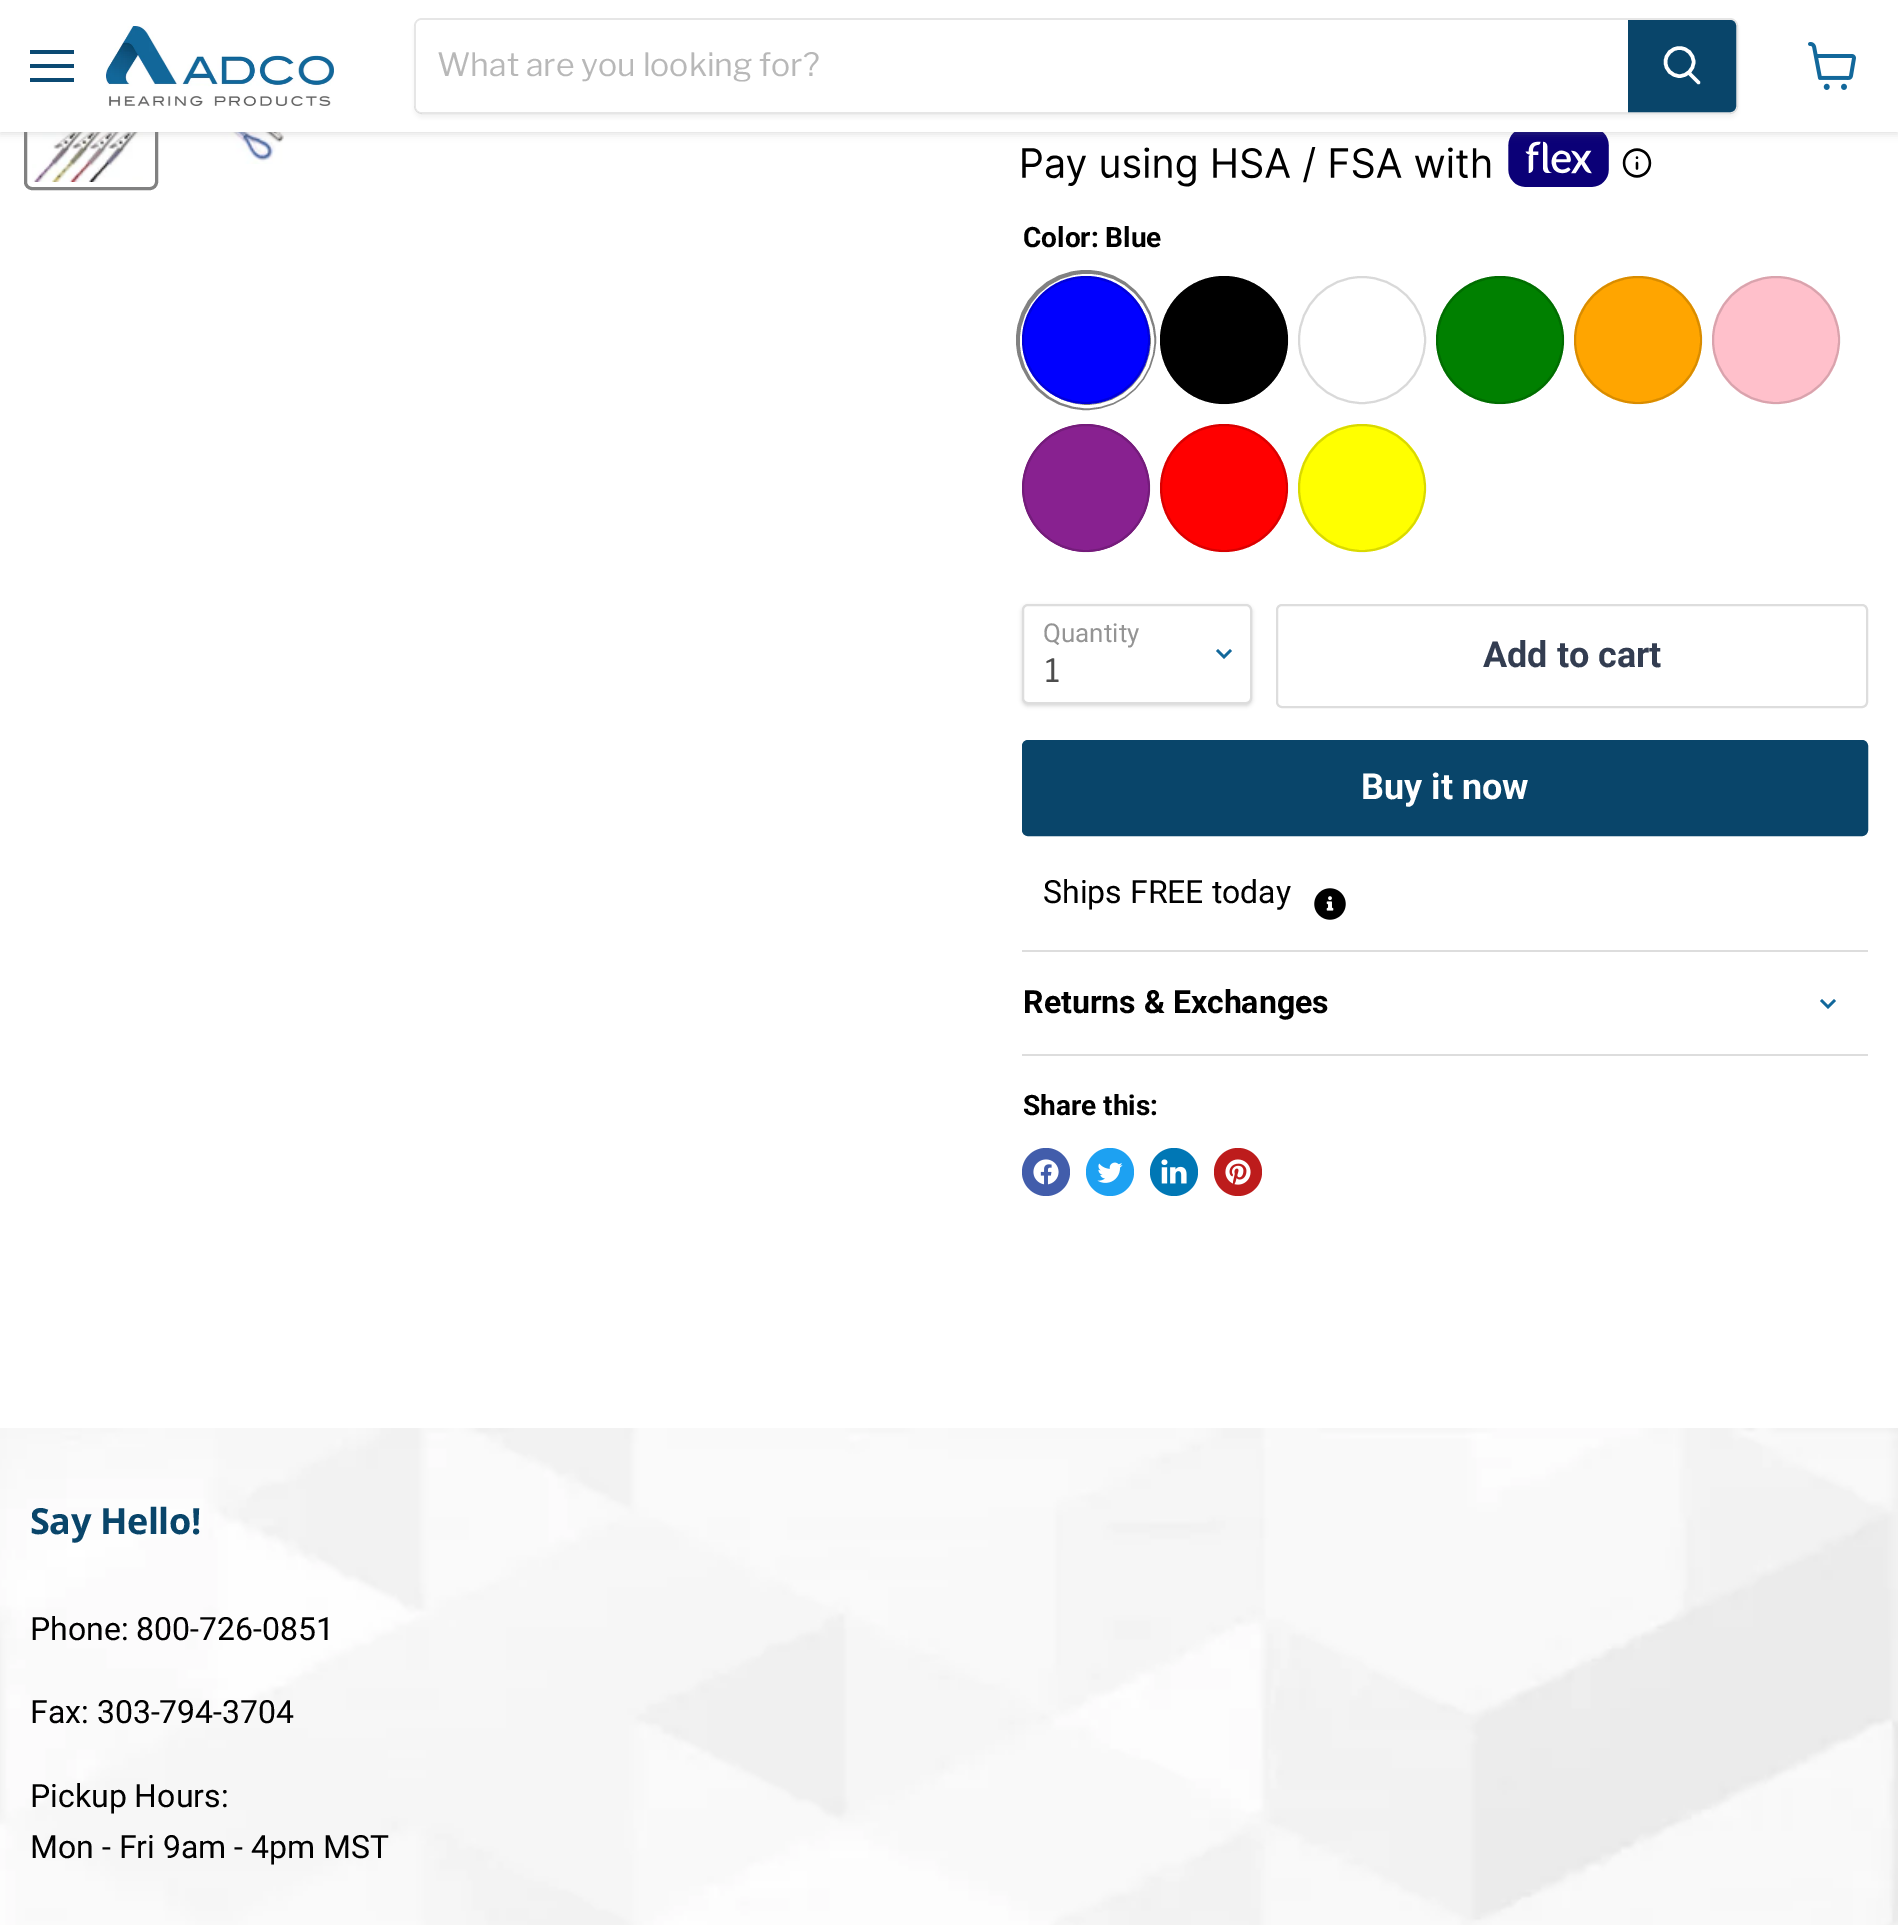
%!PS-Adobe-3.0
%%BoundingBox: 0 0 1898 1925
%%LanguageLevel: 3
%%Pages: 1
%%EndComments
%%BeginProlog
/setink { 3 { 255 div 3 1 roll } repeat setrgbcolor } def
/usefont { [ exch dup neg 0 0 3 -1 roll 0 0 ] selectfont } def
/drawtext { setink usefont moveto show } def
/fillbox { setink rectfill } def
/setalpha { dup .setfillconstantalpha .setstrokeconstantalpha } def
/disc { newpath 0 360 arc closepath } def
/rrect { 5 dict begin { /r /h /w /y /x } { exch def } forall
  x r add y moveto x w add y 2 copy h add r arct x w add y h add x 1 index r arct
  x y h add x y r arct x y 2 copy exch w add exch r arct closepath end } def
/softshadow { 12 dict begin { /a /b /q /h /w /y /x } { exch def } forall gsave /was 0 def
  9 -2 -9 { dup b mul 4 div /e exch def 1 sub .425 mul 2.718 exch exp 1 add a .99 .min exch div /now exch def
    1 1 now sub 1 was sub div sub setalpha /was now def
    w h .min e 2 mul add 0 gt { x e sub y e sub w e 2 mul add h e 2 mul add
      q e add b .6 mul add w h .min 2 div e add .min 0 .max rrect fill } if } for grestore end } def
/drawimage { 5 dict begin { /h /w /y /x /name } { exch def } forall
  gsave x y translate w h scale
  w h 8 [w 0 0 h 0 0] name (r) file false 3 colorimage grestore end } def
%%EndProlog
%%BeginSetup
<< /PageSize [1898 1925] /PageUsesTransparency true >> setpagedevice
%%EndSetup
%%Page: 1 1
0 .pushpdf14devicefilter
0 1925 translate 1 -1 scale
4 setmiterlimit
0 0 1898 1925 255 255 255 fillbox
129 129 129 setink
3 setlinewidth
25.5 57.5 131 131 6.5 rrect stroke
(assets/img3.rgb) 32 132 111 50 drawimage
(assets/img4.rgb) 170 132 114 32 drawimage
(assets/img5.rgb) 1022 132 630 55 drawimage
128 128 128 setink
0 2 1898 132 0 4 0.25 softshadow
0 0 1898 132 255 255 255 fillbox
30 50 44 4 11 74 115 fillbox
30 64 44 4 11 74 115 fillbox
30 78 44 4 11 74 115 fillbox
(assets/img1.rgb) 106 26 228 80 drawimage
gsave
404 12 moveto 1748 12 lineto 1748 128 lineto 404 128 lineto closepath 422 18 moveto 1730 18 lineto 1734.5 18 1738 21.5 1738 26 curveto 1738 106 lineto 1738 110.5 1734.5 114 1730 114 curveto 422 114 lineto 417.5 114 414 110.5 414 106 curveto 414 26 lineto 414 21.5 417.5 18 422 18 curveto closepath eoclip newpath
128 128 128 setink
414 22 1324 96 8 3 0.11 softshadow
grestore
0.2 setalpha
128 128 128 setink
2 setlinewidth
415 19 1322 94 7 rrect stroke
1 setalpha
255 255 255 setink
422 20 moveto 1628 20 lineto 1628 112 lineto 422 112 lineto 418.5 112 416 109.5 416 106 curveto 416 26 lineto 416 22.5 418.5 20 422 20 curveto closepath fill
(What are you looking for?) 437 76 /LibreFranklin-Regular 32 184 184 184 drawtext
9 69 106 setink
1629 21 moveto 1730 21 lineto 1733 21 1735 23 1735 26 curveto 1735 106 lineto 1735 109 1733 111 1730 111 curveto 1629 111 lineto closepath gsave fill grestore
stroke
255 255 255 setink
3.5 setlinewidth
1 setlinecap
1698.5 82.5 moveto 1689 73 lineto stroke
0 setlinecap
1679.5 62 14 disc stroke
(assets/img2.rgb) 1808 42 48 48 drawimage
(Color: Blue) 1023 247 /Roboto-Bold 28 0 0 0 drawtext
129 129 129 setink
6 setlinewidth
1086 340 67 disc stroke
255 255 255 setink
3 setlinewidth
1087 341 65.5 disc stroke
0 0 255 setink
1086 340 64 disc fill
0.15 setalpha
0 0 0 setink
2 setlinewidth
1086 340 63 disc stroke
1 setalpha
1224 340 64 disc fill
0.15 setalpha
1224 340 63 disc stroke
1 setalpha
217 217 217 setink
1362 340 63 disc stroke
0 128 0 setink
1500 340 64 disc fill
0.15 setalpha
0 0 0 setink
1500 340 63 disc stroke
1 setalpha
255 165 0 setink
1638 340 64 disc fill
0.15 setalpha
0 0 0 setink
1638 340 63 disc stroke
1 setalpha
255 192 203 setink
1776 340 64 disc fill
0.15 setalpha
0 0 0 setink
1776 340 63 disc stroke
1 setalpha
128 0 128 setink
1086 488 64 disc fill
(assets/img6.rgb) 1022 424 128 128 drawimage
0.15 setalpha
0 0 0 setink
1086 488 63 disc stroke
1 setalpha
255 0 0 setink
1224 488 64 disc fill
0.15 setalpha
0 0 0 setink
1224 488 63 disc stroke
1 setalpha
255 255 0 setink
1362 488 64 disc fill
0.15 setalpha
0 0 0 setink
1362 488 63 disc stroke
1 setalpha
1022 606 230 100 6 2 0.15 softshadow
255 255 255 setink
1023 605 228 98 5 rrect gsave fill grestore
221 221 221 setink
stroke
(Quantity) 1043 642 /Roboto-Regular 26 148 148 148 drawtext
18 104 155 setink
2.5 setlinewidth
2 setlinecap
1224 657 moveto 1230 651 lineto 1224 657 moveto 1218 651 lineto stroke
(1) 1045 682 /LibreFranklin-Regular 32 77 77 77 drawtext
221 221 221 setink
2 setlinewidth
0 setlinecap
1277 605 590 102 5 rrect stroke
(Add to cart) 1483 667 /Roboto-Bold 36 51 61 81 drawtext
9 69 106 setink
1023 741 844 94 5 rrect gsave fill grestore
stroke
(Buy it now) 1361 799 /Roboto-Bold 36 255 255 255 drawtext
(Ships FREE today) 1043 903 /Roboto-Regular 32 0 0 0 drawtext
(assets/img7.rgb) 1314 888 32 32 drawimage
1022 950 846 2 221 221 221 fillbox
1022 1054 846 2 221 221 221 fillbox
(Returns & Exchanges) 1023 1013 /Roboto-Bold 32 0 0 0 drawtext
18 104 155 setink
2.5 setlinewidth
2 setlinecap
1828 1007 moveto 1834 1001 lineto 1828 1007 moveto 1822 1001 lineto stroke
(Share this:) 1023 1115 /Roboto-Bold 28 0 0 0 drawtext
66 93 171 setink
1046 1172 24 disc fill
(assets/img8.rgb) 1033 1159 26 26 drawimage
29 161 242 setink
1110 1172 24 disc fill
(assets/img9.rgb) 1097 1162 26 21 drawimage
0 119 181 setink
1174 1172 24 disc fill
(assets/img10.rgb) 1161 1159 26 25 drawimage
189 28 28 setink
1238 1172 24 disc fill
(assets/img11.rgb) 1225 1159 26 26 drawimage
(assets/img12.rgb) 0 1428 1898 497 drawimage
/OpenSans-Bold 36 usefont
9 69 106 setink
30 1534 moveto -0.4 0 (Say Hello!) ashow
(Phone: 800-726-0851) 30 1640 /Roboto-Regular 32 0 0 0 drawtext
(Fax: 303-794-3704) 30 1723 /Roboto-Regular 32 0 0 0 drawtext
(Pickup Hours:) 30 1807 /Roboto-Regular 32 0 0 0 drawtext
(Mon - Fri 9am - 4pm MST) 30 1858 /Roboto-Regular 32 0 0 0 drawtext
.poppdf14devicefilter showpage
%%EOF
